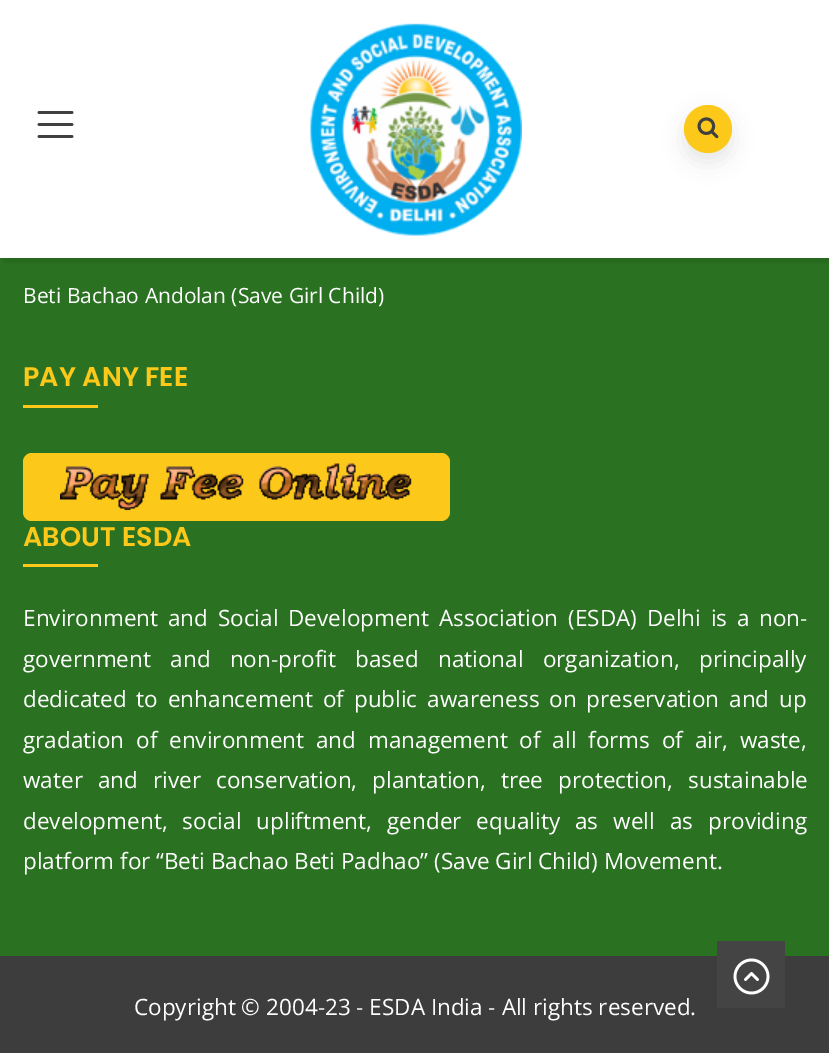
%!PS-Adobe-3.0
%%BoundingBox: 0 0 829 1053
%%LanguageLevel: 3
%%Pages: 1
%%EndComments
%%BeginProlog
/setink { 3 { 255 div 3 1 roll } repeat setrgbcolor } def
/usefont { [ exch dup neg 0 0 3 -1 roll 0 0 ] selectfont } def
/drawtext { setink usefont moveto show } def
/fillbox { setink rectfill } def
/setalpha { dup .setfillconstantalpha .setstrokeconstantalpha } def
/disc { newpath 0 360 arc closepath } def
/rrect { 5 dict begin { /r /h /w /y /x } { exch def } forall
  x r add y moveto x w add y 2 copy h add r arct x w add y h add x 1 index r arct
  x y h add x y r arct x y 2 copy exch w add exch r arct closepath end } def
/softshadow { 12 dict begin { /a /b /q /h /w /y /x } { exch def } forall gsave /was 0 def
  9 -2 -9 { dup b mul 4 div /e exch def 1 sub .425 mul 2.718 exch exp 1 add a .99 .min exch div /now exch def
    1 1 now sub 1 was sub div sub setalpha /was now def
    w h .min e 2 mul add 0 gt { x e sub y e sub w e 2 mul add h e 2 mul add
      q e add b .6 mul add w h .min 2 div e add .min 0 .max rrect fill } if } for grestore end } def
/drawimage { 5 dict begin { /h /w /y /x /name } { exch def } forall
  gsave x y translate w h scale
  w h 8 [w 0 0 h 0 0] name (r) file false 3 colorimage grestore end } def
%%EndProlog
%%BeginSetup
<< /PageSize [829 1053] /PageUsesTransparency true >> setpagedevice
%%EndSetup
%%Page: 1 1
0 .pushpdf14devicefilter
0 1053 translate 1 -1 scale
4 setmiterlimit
0 0 829 1053 42 114 33 fillbox
0 0 0 setink
3 5 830 258 0 2 0.1 softshadow
0 0 829 258 255 255 255 fillbox
(assets/img1.rgb) 37 111 37 27 drawimage
(assets/img2.rgb) 310 23 212 213 drawimage
0 0 0 setink
684 114 48 48 24 10.5 0.1 softshadow
252 201 27 setink
708 129 24 disc fill
(assets/img3.rgb) 697 117 22 22 drawimage
(Beti Bachao Andolan \(Save Girl Child\)) 23 303 /OpenSans-Regular 21 255 255 255 drawtext
(PAY ANY FEE) 23 386 /Poppins-SemiBold 27 252 201 27 drawtext
23 405 75 3 252 201 27 fillbox
23 453 427 68 9 rrect fill
(assets/img4.rgb) 60 463 352 47 drawimage
(ABOUT ESDA) 23 546 /Poppins-SemiBold 27 252 201 27 drawtext
23 564 75 3 252 201 27 fillbox
/OpenSans-Regular 22.5 usefont
255 255 255 setink
23 626 moveto 4 0 32 (Environment and Social Development Association \(ESDA\) Delhi is a non-) widthshow
23 667 moveto 13.5 0 32 (government and non-profit based national organization, principally) widthshow
23 707 moveto 4 0 32 (dedicated to enhancement of public awareness on preservation and up) widthshow
23 748 moveto 6 0 32 (gradation of environment and management of all forms of air, waste,) widthshow
23 788 moveto 9.25 0 32 (water and river conservation, plantation, tree protection, sustainable) widthshow
23 829 moveto 9.25 0 32 (development, social upliftment, gender equality as well as providing) widthshow
(platform for “Beti Bachao Beti Padhao” \(Save Girl Child\) Movement.) 23 869 /OpenSans-Regular 22.5 255 255 255 drawtext
0 956 829 97 62 61 61 fillbox
(Copyright © 2004-23 - ESDA India - All rights reserved.) 134 1015 /OpenSans-Regular 22.5 255 255 255 drawtext
717 941 68 67 68 68 68 fillbox
(assets/img5.rgb) 733 958 37 37 drawimage
.poppdf14devicefilter showpage
%%EOF
